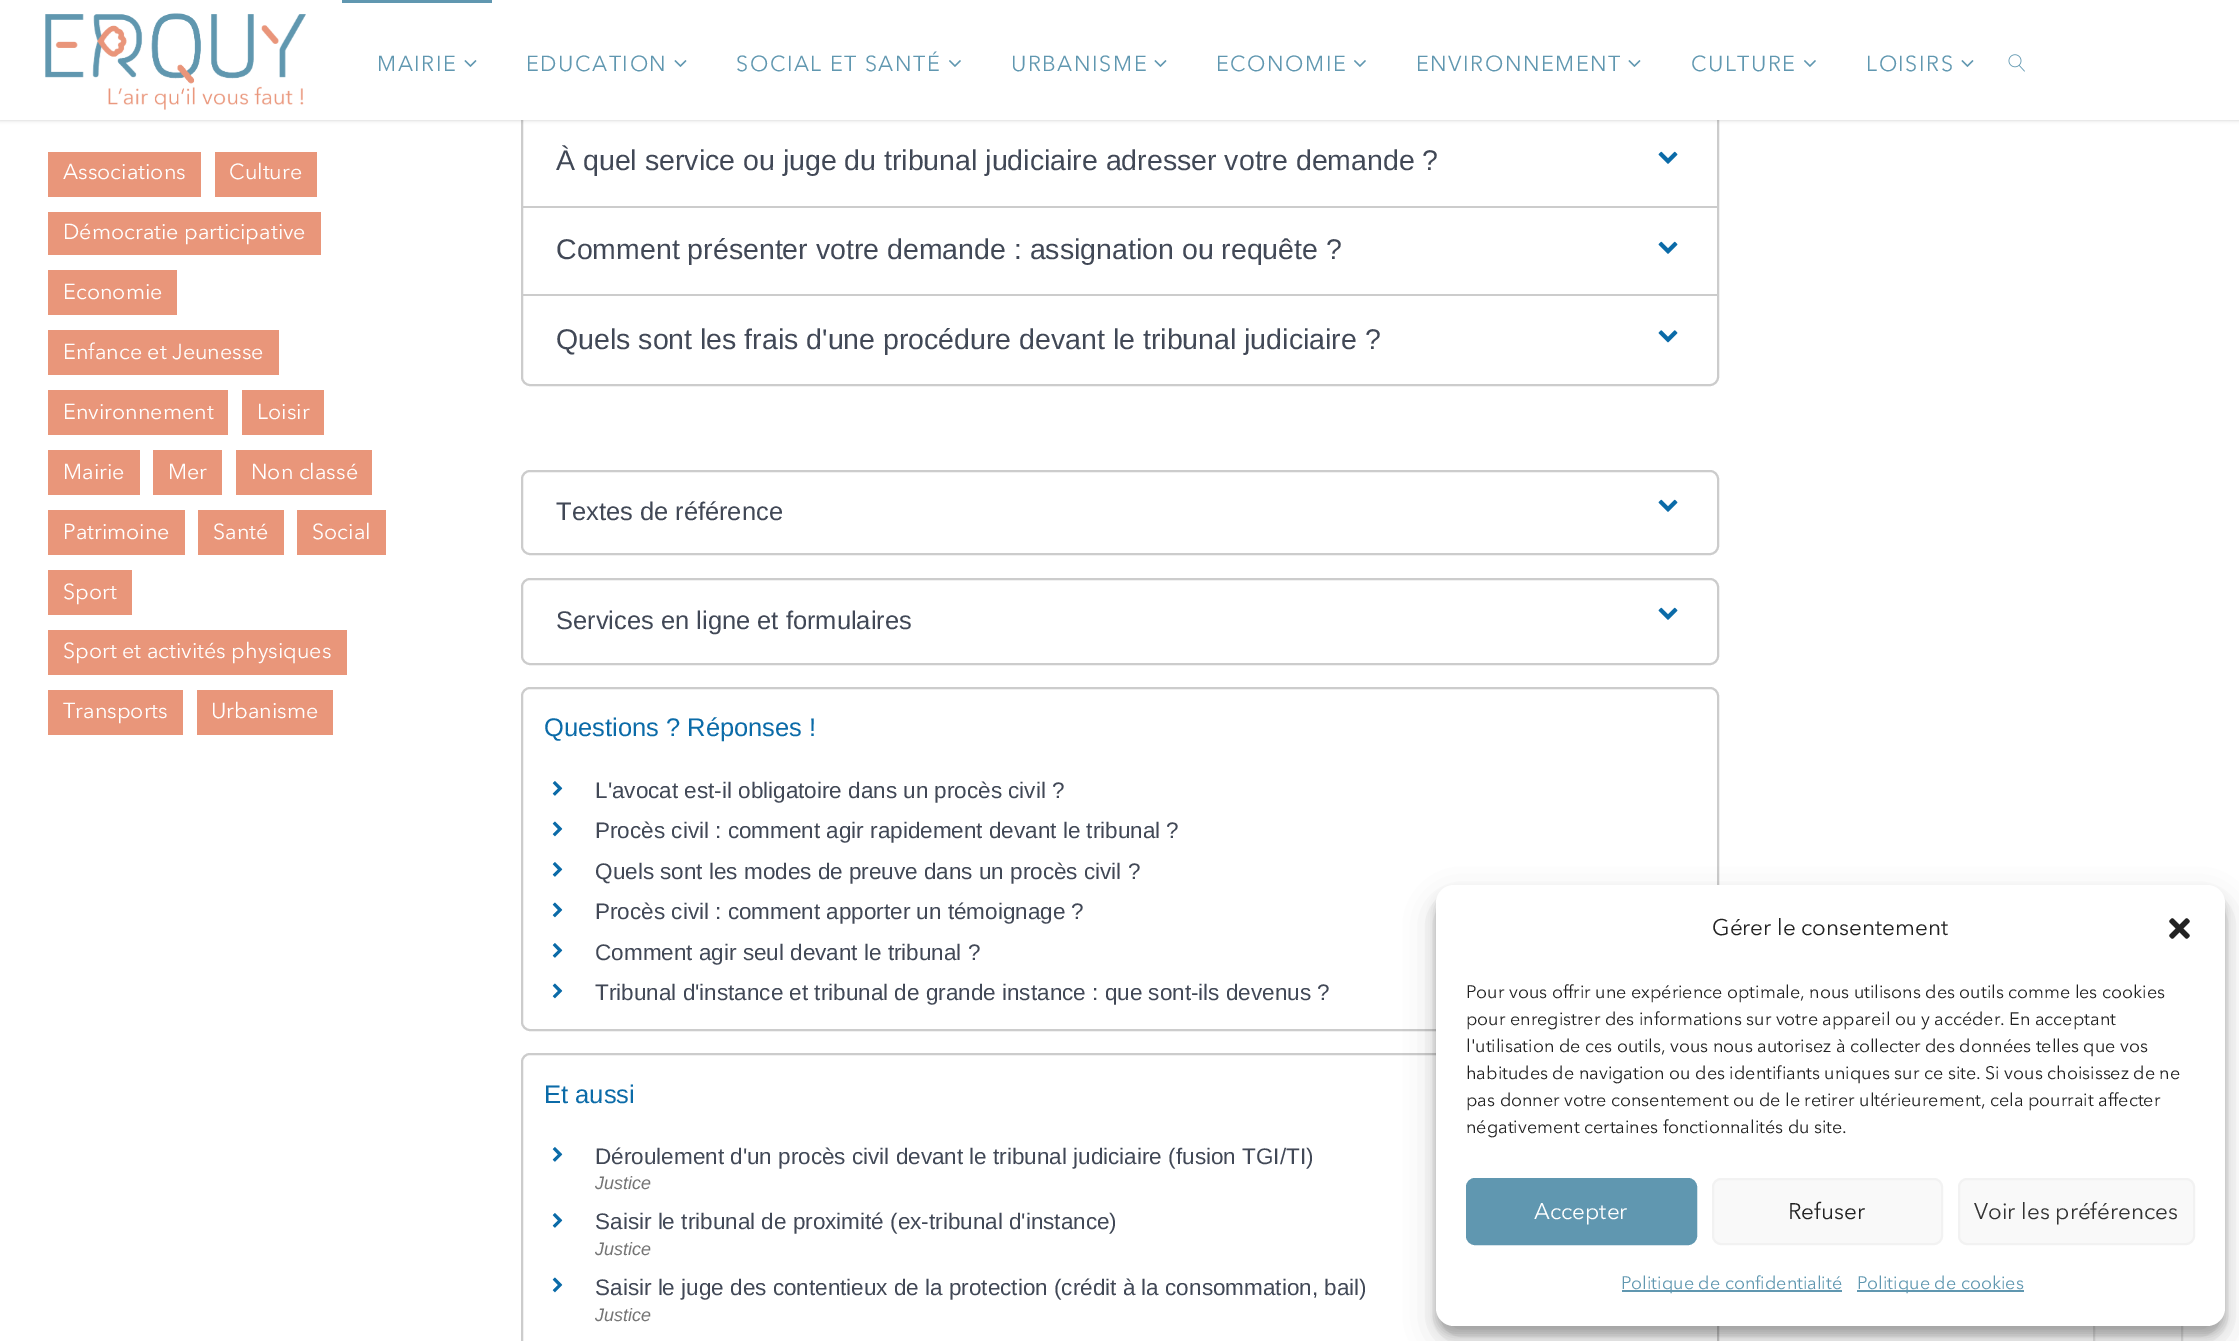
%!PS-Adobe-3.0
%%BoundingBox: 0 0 2239 1341
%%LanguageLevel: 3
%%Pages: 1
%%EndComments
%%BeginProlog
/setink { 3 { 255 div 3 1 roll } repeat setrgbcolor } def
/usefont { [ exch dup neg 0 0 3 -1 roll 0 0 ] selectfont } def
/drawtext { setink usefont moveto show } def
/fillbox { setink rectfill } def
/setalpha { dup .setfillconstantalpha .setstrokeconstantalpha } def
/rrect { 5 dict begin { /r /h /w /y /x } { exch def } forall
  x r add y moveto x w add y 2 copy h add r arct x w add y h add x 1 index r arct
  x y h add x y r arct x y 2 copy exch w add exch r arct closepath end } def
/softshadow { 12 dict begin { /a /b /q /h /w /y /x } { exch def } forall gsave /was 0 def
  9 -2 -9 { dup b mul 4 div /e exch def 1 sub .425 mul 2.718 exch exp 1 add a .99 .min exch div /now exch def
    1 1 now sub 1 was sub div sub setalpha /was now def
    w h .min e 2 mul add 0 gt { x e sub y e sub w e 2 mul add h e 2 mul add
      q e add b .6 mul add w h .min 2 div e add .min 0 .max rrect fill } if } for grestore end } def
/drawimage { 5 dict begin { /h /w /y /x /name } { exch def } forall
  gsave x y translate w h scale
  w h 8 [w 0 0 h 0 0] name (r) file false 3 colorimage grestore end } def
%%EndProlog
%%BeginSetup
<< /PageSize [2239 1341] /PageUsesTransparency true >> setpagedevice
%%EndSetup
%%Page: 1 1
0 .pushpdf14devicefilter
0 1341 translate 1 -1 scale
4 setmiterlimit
0 0 2239 1341 255 255 255 fillbox
204 204 204 setink
2 setlinewidth
522 -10 1196 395 8 rrect stroke
0 0 0 setink
0 0 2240 120 0 2 0.2 softshadow
0 0 2239 120 255 255 255 fillbox
(assets/img1.rgb) 45 13 261 97 drawimage
342 0 150 3 96 151 176 fillbox
/AvenirNext-Regular 21.6 usefont
377 71 moveto 1.5 0 (MAIRIE) ashow
(assets/img2.rgb) 464 60 13 7 drawimage
526 71 moveto 1.5 0 (EDUCATION) ashow
(assets/img2.rgb) 674 60 13 7 drawimage
736 71 moveto 1.5 0 (SOCIAL ET SANTÉ) ashow
(assets/img3.rgb) 949 60 12 7 drawimage
1011 71 moveto 1.5 0 (URBANISME) ashow
(assets/img2.rgb) 1154 60 13 7 drawimage
1216 71 moveto 1.5 0 (ECONOMIE) ashow
(assets/img3.rgb) 1354 60 12 7 drawimage
1416 71 moveto 1.5 0 (ENVIRONNEMENT) ashow
(assets/img2.rgb) 1628 60 13 7 drawimage
1691 71 moveto 1.5 0 (CULTURE) ashow
(assets/img3.rgb) 1804 60 12 7 drawimage
1866 71 moveto 1.5 0 (LOISIRS) ashow
(assets/img2.rgb) 1961 60 13 7 drawimage
(assets/img4.rgb) 2008 54 17 18 drawimage
48 152 153 45 233 150 122 fillbox
(Associations) 63 179 /AvenirNext-Regular 21.6 255 255 255 drawtext
215 152 102 45 233 150 122 fillbox
(Culture) 229 179 /AvenirNext-Regular 21.6 255 255 255 drawtext
48 212 273 43 233 150 122 fillbox
(Démocratie participative) 63 239 /AvenirNext-Regular 21.6 255 255 255 drawtext
48 270 129 45 233 150 122 fillbox
(Economie) 63 299 /AvenirNext-Regular 21.6 255 255 255 drawtext
48 330 231 45 233 150 122 fillbox
(Enfance et Jeunesse) 63 359 /AvenirNext-Regular 21.6 255 255 255 drawtext
48 390 180 45 233 150 122 fillbox
(Environnement) 63 419 /AvenirNext-Regular 21.6 255 255 255 drawtext
242 390 82 45 233 150 122 fillbox
(Loisir) 257 419 /AvenirNext-Regular 21.6 255 255 255 drawtext
48 450 92 45 233 150 122 fillbox
(Mairie) 63 479 /AvenirNext-Regular 21.6 255 255 255 drawtext
153 450 69 45 233 150 122 fillbox
(Mer) 168 479 /AvenirNext-Regular 21.6 255 255 255 drawtext
236 450 136 45 233 150 122 fillbox
(Non classé) 251 479 /AvenirNext-Regular 21.6 255 255 255 drawtext
48 510 137 45 233 150 122 fillbox
(Patrimoine) 63 539 /AvenirNext-Regular 21.6 255 255 255 drawtext
198 510 86 45 233 150 122 fillbox
(Santé) 213 539 /AvenirNext-Regular 21.6 255 255 255 drawtext
297 510 89 45 233 150 122 fillbox
(Social) 312 539 /AvenirNext-Regular 21.6 255 255 255 drawtext
48 570 84 45 233 150 122 fillbox
(Sport) 63 599 /AvenirNext-Regular 21.6 255 255 255 drawtext
48 630 299 45 233 150 122 fillbox
(Sport et activités physiques) 63 658 /AvenirNext-Regular 21.6 255 255 255 drawtext
48 690 135 45 233 150 122 fillbox
(Transports) 63 718 /AvenirNext-Regular 21.6 255 255 255 drawtext
197 690 136 45 233 150 122 fillbox
(Urbanisme) 211 718 /AvenirNext-Regular 21.6 255 255 255 drawtext
(À quel service ou juge du tribunal judiciaire adresser votre demande ?) 556 170 /LiberationSans-Regular 28.5 65 72 86 drawtext
(assets/img5.rgb) 1658 151 20 13 drawimage
522 206 1196 2 204 204 204 fillbox
(Comment présenter votre demande : assignation ou requête ?) 556 259 /LiberationSans-Regular 28.5 65 72 86 drawtext
(assets/img5.rgb) 1658 241 20 13 drawimage
522 294 1196 2 204 204 204 fillbox
(Quels sont les frais d'une procédure devant le tribunal judiciaire ?) 556 349 /LiberationSans-Regular 28.5 65 72 86 drawtext
(assets/img6.rgb) 1658 330 20 13 drawimage
204 204 204 setink
522 471 1196 83 8 rrect stroke
(Textes de référence) 556 520 /LiberationSans-Regular 25.5 65 72 86 drawtext
(assets/img5.rgb) 1658 499 20 13 drawimage
204 204 204 setink
522 579 1196 85 8 rrect stroke
(Services en ligne et formulaires) 556 629 /LiberationSans-Regular 25.5 65 72 86 drawtext
(assets/img5.rgb) 1658 607 20 13 drawimage
204 204 204 setink
522 688 1196 342 8 rrect stroke
(Questions ? Réponses !) 544 736 /LiberationSans-Regular 25.5 11 107 168 drawtext
(assets/img7.rgb) 552 781 11 15 drawimage
(L'avocat est-il obligatoire dans un procès civil ?) 595 798 /LiberationSans-Regular 22.5 65 72 86 drawtext
(assets/img8.rgb) 552 821 11 16 drawimage
(Procès civil : comment agir rapidement devant le tribunal ?) 595 838 /LiberationSans-Regular 22.5 65 72 86 drawtext
(assets/img7.rgb) 552 862 11 15 drawimage
(Quels sont les modes de preuve dans un procès civil ?) 595 879 /LiberationSans-Regular 22.5 65 72 86 drawtext
(assets/img8.rgb) 552 902 11 16 drawimage
(Procès civil : comment apporter un témoignage ?) 595 919 /LiberationSans-Regular 22.5 65 72 86 drawtext
(assets/img7.rgb) 552 943 11 15 drawimage
(Comment agir seul devant le tribunal ?) 595 960 /LiberationSans-Regular 22.5 65 72 86 drawtext
(assets/img8.rgb) 552 983 11 16 drawimage
(Tribunal d'instance et tribunal de grande instance : que sont-ils devenus ?) 595 1000 /LiberationSans-Regular 22.5 65 72 86 drawtext
204 204 204 setink
522 1054 1196 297 8 rrect stroke
(Et aussi) 544 1103 /LiberationSans-Regular 25.5 11 107 168 drawtext
(assets/img7.rgb) 552 1147 11 15 drawimage
(Déroulement d'un procès civil devant le tribunal judiciaire \(fusion TGI/TI\)) 595 1164 /LiberationSans-Regular 22.5 65 72 86 drawtext
(Justice) 595 1189 /LiberationSans-Italic 18 117 117 117 drawtext
(assets/img7.rgb) 552 1213 11 15 drawimage
(Saisir le tribunal de proximité \(ex-tribunal d'instance\)) 595 1229 /LiberationSans-Regular 22.5 65 72 86 drawtext
(Justice) 595 1255 /LiberationSans-Italic 18 117 117 117 drawtext
(assets/img8.rgb) 552 1277 11 16 drawimage
(Saisir le juge des contentieux de la protection \(crédit à la consommation, bail\)) 595 1295 /LiberationSans-Regular 22.5 65 72 86 drawtext
(Justice) 595 1321 /LiberationSans-Italic 18 117 117 117 drawtext
2095 1326 86 15 251 251 251 fillbox
226 226 226 setink
2094 1285 88 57 rectstroke
0 0 0 setink
1436 894 789 441 18 4.5 0.23 softshadow
1436 900 789 441 18 15 0.19 softshadow
255 255 255 setink
1436 885 789 441 18 rrect fill
(Gérer le consentement) 1712 935 /AvenirNext-Regular 22.5 34 34 34 drawtext
(assets/img9.rgb) 2169 918 21 21 drawimage
(Pour vous offrir une expérience optimale, nous utilisons des outils comme les cookies) 1466 998 /AvenirNext-Regular 18 34 34 34 drawtext
(pour enregistrer des informations sur votre appareil ou y accéder. En acceptant) 1466 1025 /AvenirNext-Regular 18 34 34 34 drawtext
(l'utilisation de ces outils, vous nous autorisez à collecter des données telles que vos) 1466 1052 /AvenirNext-Regular 18 34 34 34 drawtext
(habitudes de navigation ou des identifiants uniques sur ce site. Si vous choisissez de ne) 1466 1079 /AvenirNext-Regular 18 34 34 34 drawtext
(pas donner votre consentement ou de le retirer ultérieurement, cela pourrait affecter) 1466 1106 /AvenirNext-Regular 18 34 34 34 drawtext
(négativement certaines fonctionnalités du site.) 1466 1133 /AvenirNext-Regular 18 34 34 34 drawtext
96 151 176 setink
1467 1179 229 65 8 rrect gsave fill grestore
stroke
(Accepter) 1534 1219 /AvenirNext-Regular 22.5 255 255 255 drawtext
249 249 249 setink
1713 1179 229 65 8 rrect gsave fill grestore
242 242 242 setink
stroke
(Refuser) 1788 1219 /AvenirNext-Regular 22.5 34 34 34 drawtext
249 249 249 setink
1959 1179 235 65 8 rrect gsave fill grestore
242 242 242 setink
stroke
(Voir les préférences) 1974 1219 /AvenirNext-Regular 22.5 51 51 51 drawtext
1622 1290 220 2 96 151 176 fillbox
(Politique de confidentialité) 1621 1289 /AvenirNext-Regular 18 96 151 176 drawtext
1857 1290 167 2 96 151 176 fillbox
(Politique de cookies) 1857 1289 /AvenirNext-Regular 18 96 151 176 drawtext
.poppdf14devicefilter showpage
%%EOF
